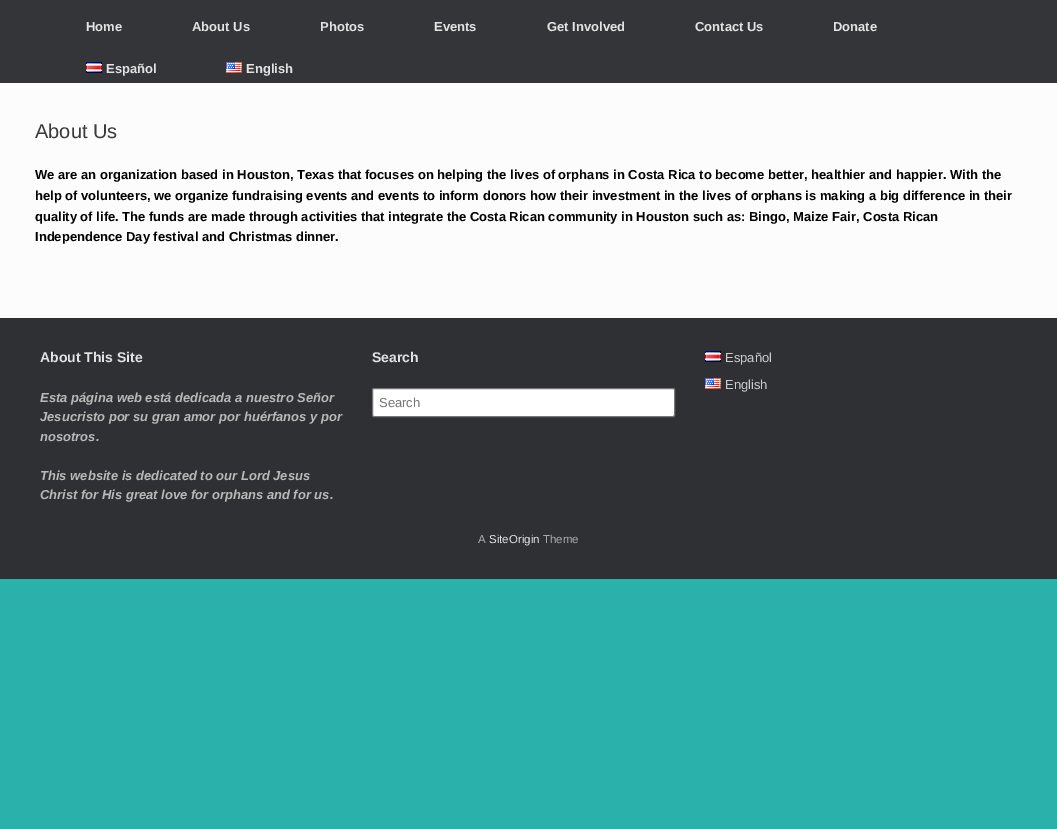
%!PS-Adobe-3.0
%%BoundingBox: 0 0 1057 829
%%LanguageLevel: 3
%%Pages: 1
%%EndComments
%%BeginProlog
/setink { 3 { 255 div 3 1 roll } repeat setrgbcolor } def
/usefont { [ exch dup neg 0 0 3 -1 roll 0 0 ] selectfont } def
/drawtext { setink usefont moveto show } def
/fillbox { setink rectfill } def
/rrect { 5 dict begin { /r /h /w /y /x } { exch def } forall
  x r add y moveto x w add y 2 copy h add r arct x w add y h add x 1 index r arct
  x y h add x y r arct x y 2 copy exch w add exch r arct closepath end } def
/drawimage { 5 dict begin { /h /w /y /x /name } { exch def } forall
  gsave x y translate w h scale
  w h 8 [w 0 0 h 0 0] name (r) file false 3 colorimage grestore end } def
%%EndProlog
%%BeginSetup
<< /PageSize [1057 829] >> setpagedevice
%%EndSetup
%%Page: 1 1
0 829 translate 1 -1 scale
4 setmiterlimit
0 0 1057 829 42 177 171 fillbox
0 0 1057 83 52 53 56 fillbox
(Home) 86 31 /LiberationSans-Bold 13 226 226 226 drawtext
(About Us) 192 31 /LiberationSans-Bold 13 226 226 226 drawtext
(Photos) 320 31 /LiberationSans-Bold 13 226 226 226 drawtext
(Events) 434 31 /LiberationSans-Bold 13 226 226 226 drawtext
(Get Involved) 547 31 /LiberationSans-Bold 13 226 226 226 drawtext
(Contact Us) 695 31 /LiberationSans-Bold 13 226 226 226 drawtext
(Donate) 833 31 /LiberationSans-Bold 13 226 226 226 drawtext
(assets/img1.rgb) 86 62 16 11 drawimage
(Español) 106 73 /LiberationSans-Bold 13 226 226 226 drawtext
(assets/img2.rgb) 226 62 16 11 drawimage
(English) 246 73 /LiberationSans-Bold 13 226 226 226 drawtext
0 83 1057 235 252 252 252 fillbox
(About Us) 35 138 /LiberationSans-Regular 20 59 59 59 drawtext
(We are an organization based in Houston, Texas that focuses on helping the lives of orphans in Costa Rica to become better, healthier and happier. With the) 35 179 /LiberationSans-Bold 13 0 0 0 drawtext
(help of volunteers, we organize fundraising events and events to inform donors how their investment in the lives of orphans is making a big difference in their) 35 200 /LiberationSans-Bold 13 0 0 0 drawtext
(quality of life. The funds are made through activities that integrate the Costa Rican community in Houston such as: Bingo, Maize Fair, Costa Rican) 35 221 /LiberationSans-Bold 13 0 0 0 drawtext
(Independence Day festival and Christmas dinner.) 35 241 /LiberationSans-Bold 13 0 0 0 drawtext
0 318 1057 261 47 48 51 fillbox
(About This Site) 40 362 /LiberationSans-Bold 14 226 226 226 drawtext
(Esta página web está dedicada a nuestro Señor) 40 402 /LiberationSans-BoldItalic 13 185 185 185 drawtext
(Jesucristo por su gran amor por huérfanos y por) 40 421 /LiberationSans-BoldItalic 13 185 185 185 drawtext
(nosotros.) 40 441 /LiberationSans-BoldItalic 13 185 185 185 drawtext
(This website is dedicated to our Lord Jesus) 40 480 /LiberationSans-BoldItalic 13 185 185 185 drawtext
(Christ for His great love for orphans and for us.) 40 499 /LiberationSans-BoldItalic 13 185 185 185 drawtext
(Search) 372 362 /LiberationSans-Bold 14 226 226 226 drawtext
255 255 255 setink
372.5 388.5 302 28 1.5 rrect gsave fill grestore
118 118 118 setink
stroke
(Search) 379 407 /LiberationSans-Regular 13 117 117 117 drawtext
(assets/img1.rgb) 705 351 16 11 drawimage
(Español) 725 362 /LiberationSans-Regular 13 204 204 204 drawtext
(assets/img2.rgb) 705 378 16 11 drawimage
(English) 725 389 /LiberationSans-Regular 13 204 204 204 drawtext
(A) 478 543 /LiberationSans-Regular 11.5 170 170 170 drawtext
(SiteOrigin) 489 543 /LiberationSans-Regular 11.5 226 226 226 drawtext
(Theme) 543 543 /LiberationSans-Regular 11.5 170 170 170 drawtext
showpage
%%EOF
